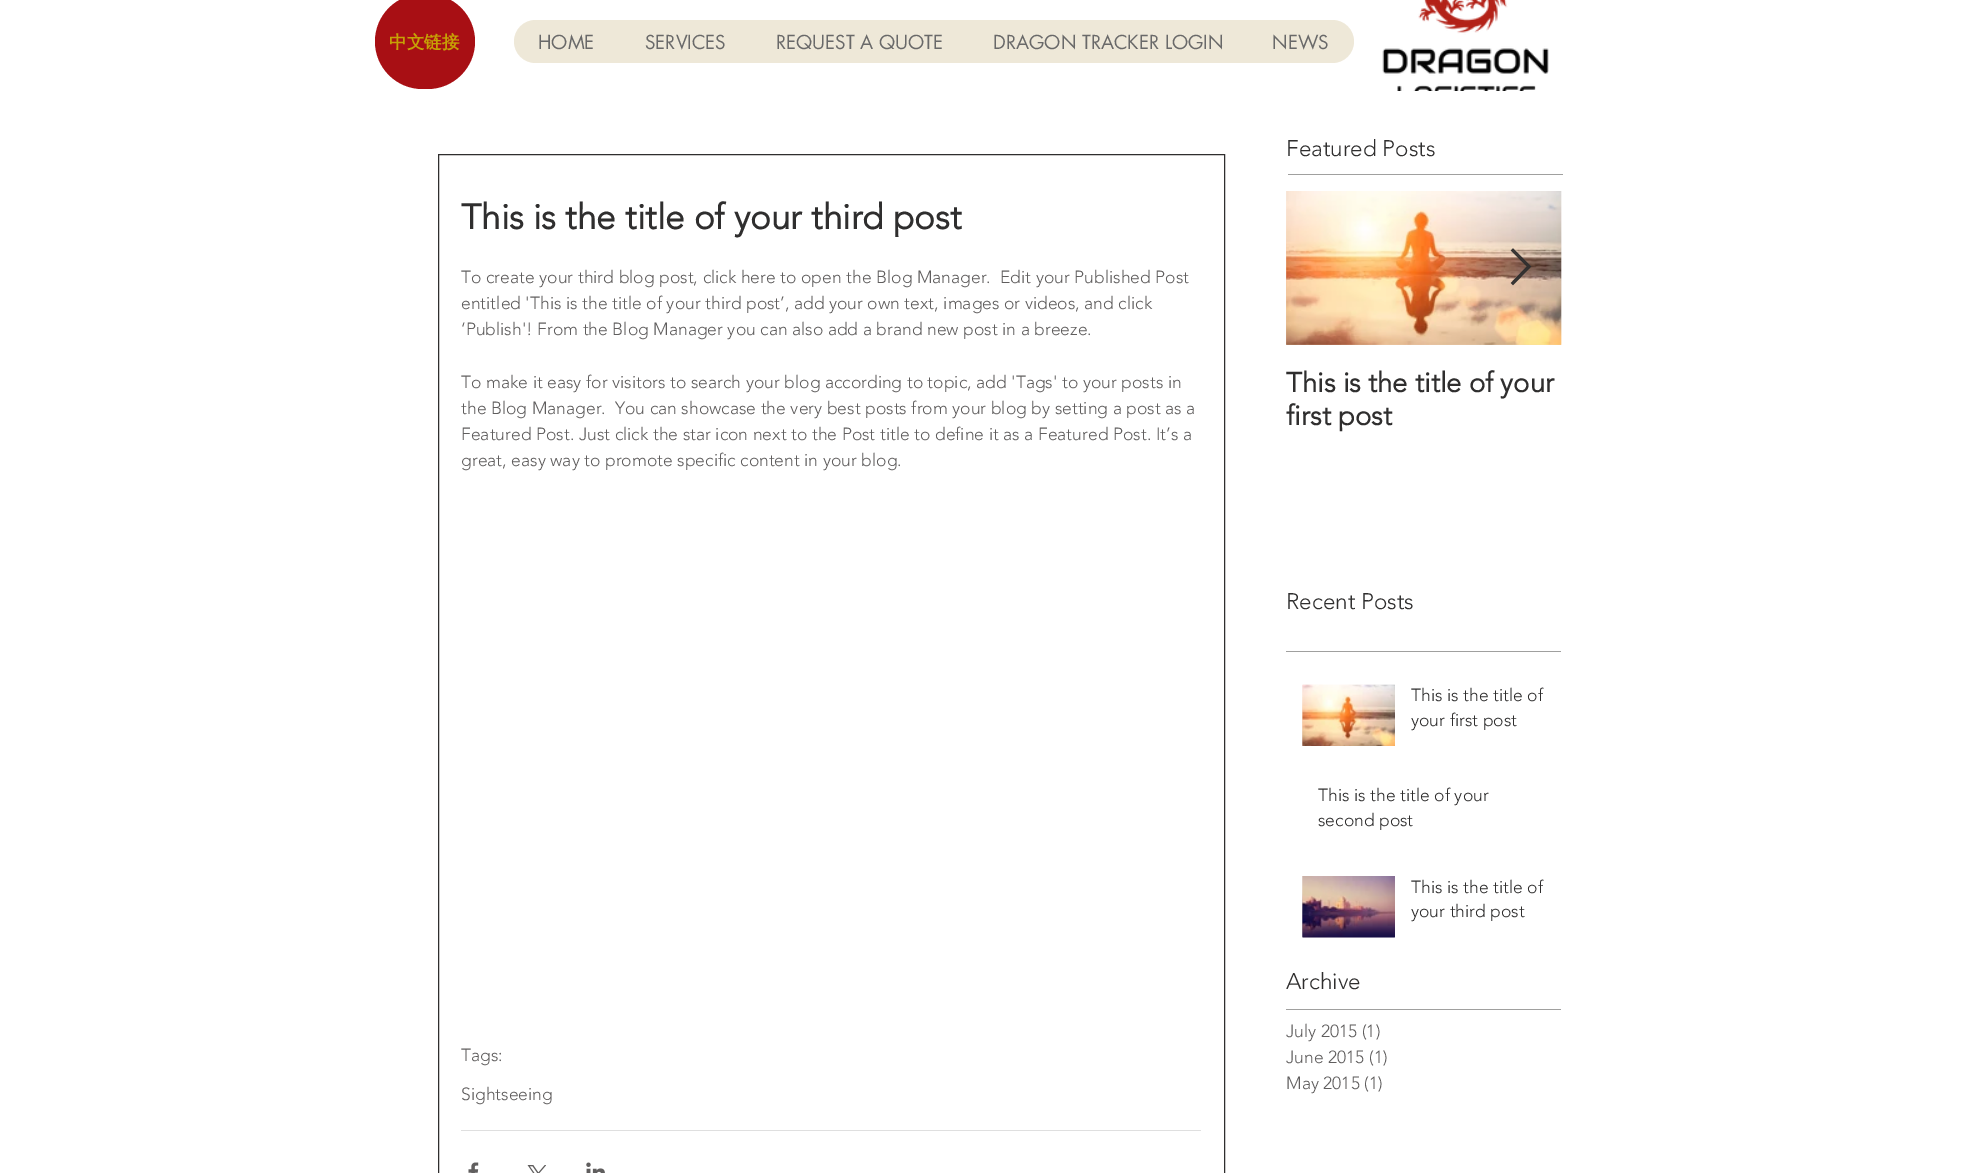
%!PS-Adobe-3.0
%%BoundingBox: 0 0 1973 1173
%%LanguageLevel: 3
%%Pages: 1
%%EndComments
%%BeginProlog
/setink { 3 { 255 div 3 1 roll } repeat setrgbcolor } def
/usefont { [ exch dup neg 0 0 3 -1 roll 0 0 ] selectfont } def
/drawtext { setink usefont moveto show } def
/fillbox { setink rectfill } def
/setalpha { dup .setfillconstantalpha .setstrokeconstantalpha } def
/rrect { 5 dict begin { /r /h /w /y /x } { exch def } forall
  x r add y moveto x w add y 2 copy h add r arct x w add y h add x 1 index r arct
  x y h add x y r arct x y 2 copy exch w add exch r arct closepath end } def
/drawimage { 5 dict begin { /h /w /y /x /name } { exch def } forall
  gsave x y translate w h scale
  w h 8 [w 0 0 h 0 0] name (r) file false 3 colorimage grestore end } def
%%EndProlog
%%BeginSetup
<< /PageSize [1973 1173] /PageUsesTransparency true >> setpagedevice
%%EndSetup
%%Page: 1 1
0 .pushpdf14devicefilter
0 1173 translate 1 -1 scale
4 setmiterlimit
0 0 1973 1173 255 255 255 fillbox
168 15 20 setink
375 -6 100 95 47.5 rrect fill
(中文链接) 389 48 /WenQuanYiZenHei-Bold 17.5 198 161 5 drawtext
238 232 216 setink
514 20 840 43 21.5 rrect fill
(HOME) 538 49 /futura-Regular 18.75 105 105 105 drawtext
(SERVICES) 645 49 /futura-Regular 18.75 105 105 105 drawtext
(REQUEST A QUOTE) 776 49 /futura-Regular 18.75 105 105 105 drawtext
(DRAGON TRACKER LOGIN) 993 49 /futura-Regular 18.75 105 105 105 drawtext
(NEWS) 1272 49 /futura-Regular 18.75 105 105 105 drawtext
(assets/img1.rgb) 1382 0 167 91 drawimage
(Featured Posts) 1286 156 /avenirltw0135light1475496-Light 22.5 47 46 46 drawtext
1288 174 275 1 160 160 159 fillbox
47 46 46 setink
438.5 154.5 786 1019 rectstroke
(This is the title of your third post) 461 229 /avenirltw0135light1475496-Bold 35 47 46 46 drawtext
(To create your third blog post, click here to open the Blog Manager.  Edit your Published Post) 461 283 /avenirltw0135light1475496-Light 17.5 96 94 94 drawtext
(entitled 'This is the title of your third post’, add your own text, images or videos, and click) 461 309 /avenirltw0135light1475496-Light 17.5 96 94 94 drawtext
(‘Publish'! From the Blog Manager you can also add a brand new post in a breeze.) 461 335 /avenirltw0135light1475496-Light 17.5 96 94 94 drawtext
(To make it easy for visitors to search your blog according to topic, add 'Tags' to your posts in) 461 388 /avenirltw0135light1475496-Light 17.5 96 94 94 drawtext
(the Blog Manager.  You can showcase the very best posts from your blog by setting a post as a) 461 414 /avenirltw0135light1475496-Light 17.5 96 94 94 drawtext
(Featured Post. Just click the star icon next to the Post title to define it as a Featured Post. It’s a) 461 440 /avenirltw0135light1475496-Light 17.5 96 94 94 drawtext
(great, easy way to promote specific content in your blog.) 461 466 /avenirltw0135light1475496-Light 17.5 96 94 94 drawtext
(Tags:) 461 1061 /avenirltw0135light1475496-Light 17.5 96 94 94 drawtext
(Sightseeing) 461 1100 /avenirltw0135light1475496-Light 17.5 96 94 94 drawtext
461 1130 740 1 223 223 223 fillbox
(assets/img2.rgb) 468 1162 11 11 drawimage
(assets/img3.rgb) 527 1165 19 8 drawimage
(assets/img4.rgb) 586 1162 19 11 drawimage
(assets/img5.rgb) 1286 191 276 154 drawimage
(assets/img6.rgb) 1286 191 276 154 drawimage
0.9 setalpha
47 46 46 setink
1511.5 250.5 moveto 1513 249 lineto 1530.5 266.5 lineto 1513 284.5 lineto 1511.5 283 lineto 1527.5 266.5 lineto closepath gsave fill grestore
stroke
1 setalpha
(This is the title of your) 1286 392 /avenirltw0135light1475496-Bold 27.5 47 46 46 drawtext
(first post) 1286 425 /avenirltw0135light1475496-Bold 27.5 47 46 46 drawtext
(Recent Posts) 1286 609 /avenirltw0135light1475496-Light 22.5 47 46 46 drawtext
1286 651 275 1 160 160 159 fillbox
(assets/img7.rgb) 1302 684 93 62 drawimage
(assets/img8.rgb) 1302 684 93 62 drawimage
(This is the title of) 1411 701 /avenirltw0135light1475496-Light 17.5 47 46 46 drawtext
(your first post) 1411 726 /avenirltw0135light1475496-Light 17.5 47 46 46 drawtext
(This is the title of your) 1318 801 /avenirltw0135light1475496-Light 17.5 47 46 46 drawtext
(second post) 1318 826 /avenirltw0135light1475496-Light 17.5 47 46 46 drawtext
(assets/img9.rgb) 1302 876 93 62 drawimage
(assets/img10.rgb) 1302 876 93 62 drawimage
(This is the title of) 1411 893 /avenirltw0135light1475496-Light 17.5 47 46 46 drawtext
(your third post) 1411 917 /avenirltw0135light1475496-Light 17.5 47 46 46 drawtext
(Archive) 1286 989 /avenirltw0135light1475496-Light 22.5 47 46 46 drawtext
1286 1009 275 1 160 160 159 fillbox
(July 2015 \(1\)) 1286 1037 /avenirltw0135light1475496-Light 17.5 96 94 94 drawtext
(June 2015 \(1\)) 1286 1063 /avenirltw0135light1475496-Light 17.5 96 94 94 drawtext
(May 2015 \(1\)) 1286 1089 /avenirltw0135light1475496-Light 17.5 96 94 94 drawtext
.poppdf14devicefilter showpage
%%EOF
